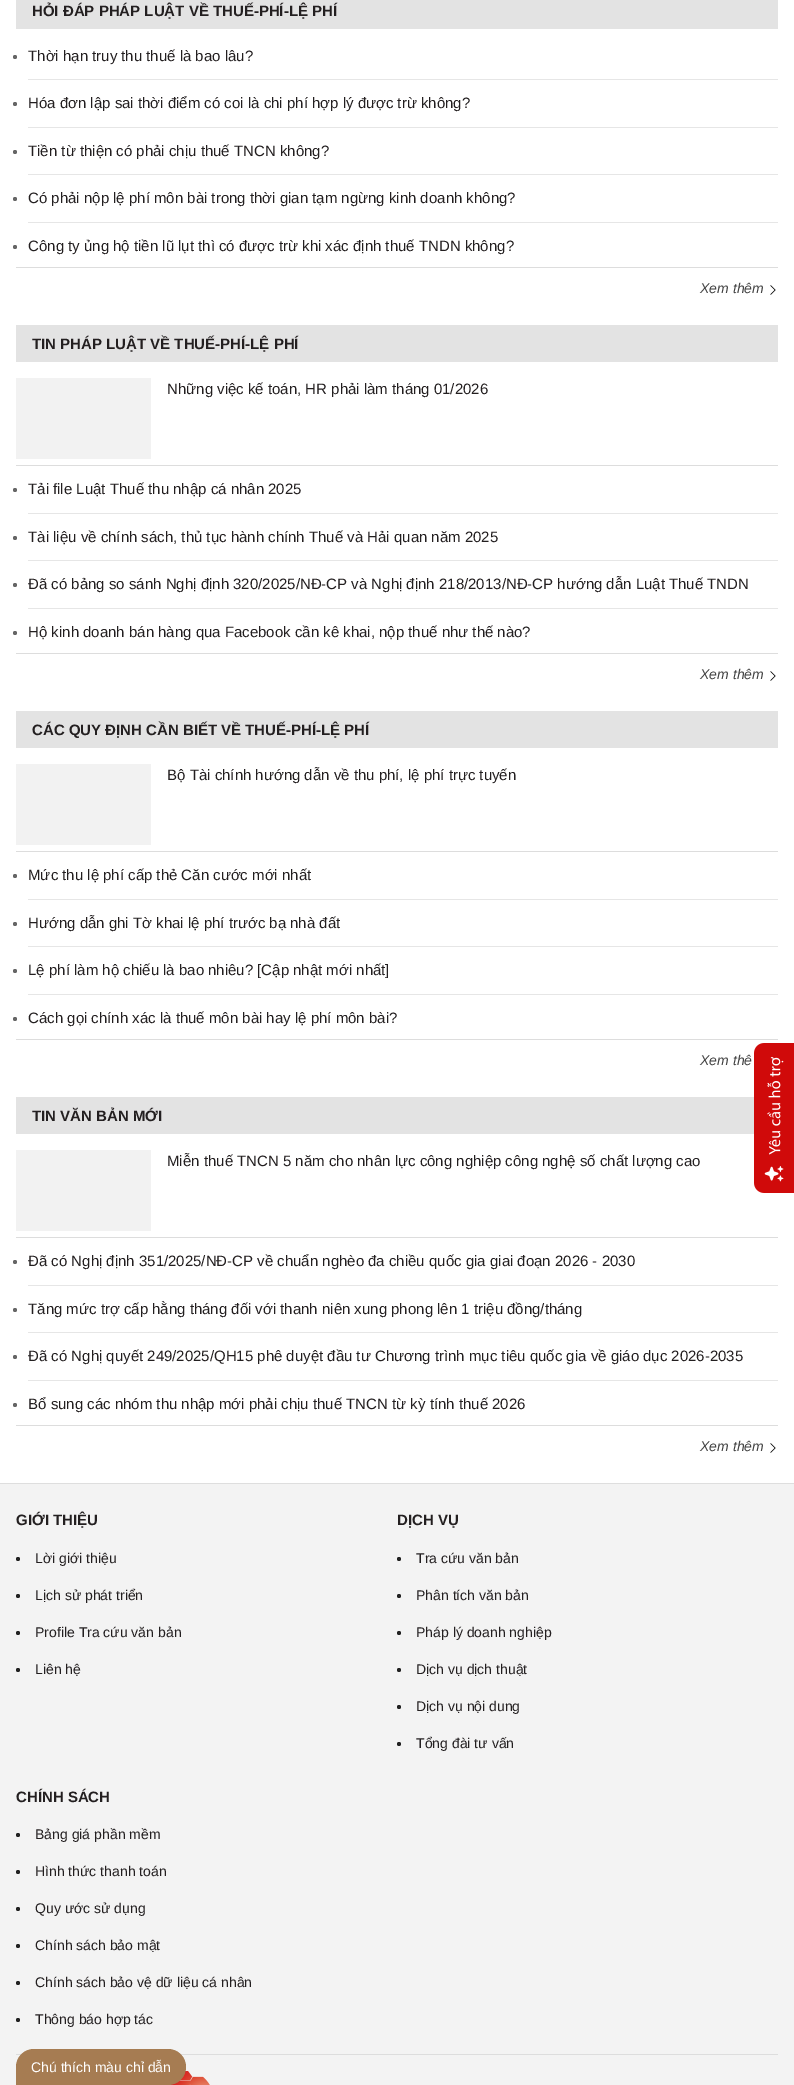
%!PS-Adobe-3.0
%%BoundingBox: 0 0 794 2085
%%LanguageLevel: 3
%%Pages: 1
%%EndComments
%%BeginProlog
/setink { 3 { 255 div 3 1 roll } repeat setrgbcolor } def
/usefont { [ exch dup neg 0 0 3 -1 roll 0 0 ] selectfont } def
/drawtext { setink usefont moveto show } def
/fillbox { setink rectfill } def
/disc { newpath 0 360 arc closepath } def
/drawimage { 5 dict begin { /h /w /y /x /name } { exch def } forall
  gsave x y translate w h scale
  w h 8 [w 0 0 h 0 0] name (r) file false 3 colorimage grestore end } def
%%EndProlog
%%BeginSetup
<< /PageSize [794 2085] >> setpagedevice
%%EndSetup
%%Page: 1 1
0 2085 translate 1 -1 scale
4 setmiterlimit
0 0 794 2085 255 255 255 fillbox
16 0 762 29 227 227 227 fillbox
(HỎI ĐÁP PHÁP LUẬT VỀ THUẾ-PHÍ-LỆ PHÍ) 32 16 /LiberationSans-Bold 15 35 31 32 drawtext
28 79 750 1 230 230 230 fillbox
102 102 102 setink
15 57 2 disc fill
(Thời hạn truy thu thuế là bao lâu?) 28 61 /LiberationSans-Regular 15 35 31 32 drawtext
28 127 750 1 230 230 230 fillbox
102 102 102 setink
15 104 2 disc fill
(Hóa đơn lập sai thời điểm có coi là chi phí hợp lý được trừ không?) 28 108 /LiberationSans-Regular 15 35 31 32 drawtext
28 174 750 1 230 230 230 fillbox
102 102 102 setink
15 152 2 disc fill
(Tiền từ thiện có phải chịu thuế TNCN không?) 28 156 /LiberationSans-Regular 15 35 31 32 drawtext
28 222 750 1 230 230 230 fillbox
102 102 102 setink
15 199 2 disc fill
(Có phải nộp lệ phí môn bài trong thời gian tạm ngừng kinh doanh không?) 28 203 /LiberationSans-Regular 15 35 31 32 drawtext
102 102 102 setink
15 247 2 disc fill
(Công ty ủng hộ tiền lũ lụt thì có được trừ khi xác định thuế TNDN không?) 28 251 /LiberationSans-Regular 15 35 31 32 drawtext
16 267 762 1 221 221 221 fillbox
(Xem thêm) 700 293 /LiberationSans-Italic 14 68 68 68 drawtext
(assets/img1.rgb) 770 285 6 10 drawimage
16 325 762 37 227 227 227 fillbox
(TIN PHÁP LUẬT VỀ THUẾ-PHÍ-LỆ PHÍ) 32 349 /LiberationSans-Bold 15 35 31 32 drawtext
16 465 762 1 221 221 221 fillbox
16 378 135 81 242 242 242 fillbox
(Những việc kế toán, HR phải làm tháng 01/2026) 167 394 /LiberationSans-Regular 15 35 31 32 drawtext
28 513 750 1 230 230 230 fillbox
102 102 102 setink
15 490 2 disc fill
(Tải file Luật Thuế thu nhập cá nhân 2025) 28 494 /LiberationSans-Regular 15 35 31 32 drawtext
28 560 750 1 230 230 230 fillbox
102 102 102 setink
15 538 2 disc fill
(Tài liệu về chính sách, thủ tục hành chính Thuế và Hải quan năm 2025) 28 542 /LiberationSans-Regular 15 35 31 32 drawtext
28 608 750 1 230 230 230 fillbox
102 102 102 setink
15 585 2 disc fill
(Đã có bảng so sánh Nghị định 320/2025/NĐ-CP và Nghị định 218/2013/NĐ-CP hướng dẫn Luật Thuế TNDN) 28 589 /LiberationSans-Regular 15 35 31 32 drawtext
102 102 102 setink
15 633 2 disc fill
(Hộ kinh doanh bán hàng qua Facebook cần kê khai, nộp thuế như thế nào?) 28 637 /LiberationSans-Regular 15 35 31 32 drawtext
16 653 762 1 221 221 221 fillbox
(Xem thêm) 700 679 /LiberationSans-Italic 14 68 68 68 drawtext
(assets/img1.rgb) 770 671 6 10 drawimage
16 711 762 37 227 227 227 fillbox
(CÁC QUY ĐỊNH CẦN BIẾT VỀ THUẾ-PHÍ-LỆ PHÍ) 32 735 /LiberationSans-Bold 15 35 31 32 drawtext
16 851 762 1 221 221 221 fillbox
16 764 135 81 242 242 242 fillbox
(Bộ Tài chính hướng dẫn về thu phí, lệ phí trực tuyến) 167 780 /LiberationSans-Regular 15 35 31 32 drawtext
28 899 750 1 230 230 230 fillbox
102 102 102 setink
15 876 2 disc fill
(Mức thu lệ phí cấp thẻ Căn cước mới nhất) 28 880 /LiberationSans-Regular 15 35 31 32 drawtext
28 946 750 1 230 230 230 fillbox
102 102 102 setink
15 924 2 disc fill
(Hướng dẫn ghi Tờ khai lệ phí trước bạ nhà đất) 28 928 /LiberationSans-Regular 15 35 31 32 drawtext
28 994 750 1 230 230 230 fillbox
102 102 102 setink
15 971 2 disc fill
(Lệ phí làm hộ chiếu là bao nhiêu? [Cập nhật mới nhất]) 28 975 /LiberationSans-Regular 15 35 31 32 drawtext
102 102 102 setink
15 1019 2 disc fill
(Cách gọi chính xác là thuế môn bài hay lệ phí môn bài?) 28 1023 /LiberationSans-Regular 15 35 31 32 drawtext
16 1039 762 1 221 221 221 fillbox
(Xem thê) 700 1065 /LiberationSans-Italic 14 68 68 68 drawtext
16 1097 738 37 227 227 227 fillbox
(TIN VĂN BẢN MỚI) 32 1121 /LiberationSans-Bold 15 35 31 32 drawtext
16 1237 762 1 221 221 221 fillbox
16 1150 135 81 242 242 242 fillbox
(Miễn thuế TNCN 5 năm cho nhân lực công nghiệp công nghệ số chất lượng cao) 167 1166 /LiberationSans-Regular 15 35 31 32 drawtext
28 1285 750 1 230 230 230 fillbox
102 102 102 setink
15 1262 2 disc fill
(Đã có Nghị định 351/2025/NĐ-CP về chuẩn nghèo đa chiều quốc gia giai đoạn 2026 - 2030) 28 1266 /LiberationSans-Regular 15 35 31 32 drawtext
28 1332 750 1 230 230 230 fillbox
102 102 102 setink
15 1310 2 disc fill
(Tăng mức trợ cấp hằng tháng đối với thanh niên xung phong lên 1 triệu đồng/tháng) 28 1314 /LiberationSans-Regular 15 35 31 32 drawtext
28 1380 750 1 230 230 230 fillbox
102 102 102 setink
15 1357 2 disc fill
(Đã có Nghị quyết 249/2025/QH15 phê duyệt đầu tư Chương trình mục tiêu quốc gia về giáo dục 2026-2035) 28 1361 /LiberationSans-Regular 15 35 31 32 drawtext
102 102 102 setink
15 1405 2 disc fill
(Bổ sung các nhóm thu nhập mới phải chịu thuế TNCN từ kỳ tính thuế 2026) 28 1409 /LiberationSans-Regular 15 35 31 32 drawtext
16 1425 762 1 221 221 221 fillbox
(Xem thêm) 700 1451 /LiberationSans-Italic 14 68 68 68 drawtext
(assets/img1.rgb) 770 1443 6 10 drawimage
0 1484 794 601 243 243 243 fillbox
0 1483 794 1 222 222 222 fillbox
(assets/img2.rgb) 754 1043 40 150 drawimage
(GIỚI THIỆU) 16 1525 /LiberationSans-Bold 15 35 31 32 drawtext
34 34 34 setink
18 1559 2 disc fill
(Lời giới thiệu) 35 1563 /LiberationSans-Regular 14 35 31 32 drawtext
34 34 34 setink
18 1596 2 disc fill
(Lịch sử phát triển) 35 1600 /LiberationSans-Regular 14 35 31 32 drawtext
34 34 34 setink
18 1633 2 disc fill
(Profile Tra cứu văn bản) 35 1637 /LiberationSans-Regular 14 35 31 32 drawtext
34 34 34 setink
18 1670 2 disc fill
(Liên hệ) 35 1674 /LiberationSans-Regular 14 35 31 32 drawtext
(DỊCH VỤ) 397 1525 /LiberationSans-Bold 15 35 31 32 drawtext
34 34 34 setink
399 1559 2 disc fill
(Tra cứu văn bản) 416 1563 /LiberationSans-Regular 14 35 31 32 drawtext
34 34 34 setink
399 1596 2 disc fill
(Phân tích văn bản) 416 1600 /LiberationSans-Regular 14 35 31 32 drawtext
34 34 34 setink
399 1633 2 disc fill
(Pháp lý doanh nghiệp) 416 1637 /LiberationSans-Regular 14 35 31 32 drawtext
34 34 34 setink
399 1670 2 disc fill
(Dịch vụ dịch thuật) 416 1674 /LiberationSans-Regular 14 35 31 32 drawtext
34 34 34 setink
399 1707 2 disc fill
(Dịch vụ nội dung) 416 1711 /LiberationSans-Regular 14 35 31 32 drawtext
34 34 34 setink
399 1744 2 disc fill
(Tổng đài tư vấn) 416 1748 /LiberationSans-Regular 14 35 31 32 drawtext
(CHÍNH SÁCH) 16 1802 /LiberationSans-Bold 15 35 31 32 drawtext
34 34 34 setink
18 1835 2 disc fill
(Bảng giá phần mềm) 35 1839 /LiberationSans-Regular 14 35 31 32 drawtext
34 34 34 setink
18 1872 2 disc fill
(Hình thức thanh toán) 35 1876 /LiberationSans-Regular 14 35 31 32 drawtext
34 34 34 setink
18 1909 2 disc fill
(Quy ước sử dụng) 35 1913 /LiberationSans-Regular 14 35 31 32 drawtext
34 34 34 setink
18 1946 2 disc fill
(Chính sách bảo mật) 35 1950 /LiberationSans-Regular 14 35 31 32 drawtext
34 34 34 setink
18 1983 2 disc fill
(Chính sách bảo vệ dữ liệu cá nhân) 35 1987 /LiberationSans-Regular 14 35 31 32 drawtext
34 34 34 setink
18 2020 2 disc fill
(Thông báo hợp tác) 35 2024 /LiberationSans-Regular 14 35 31 32 drawtext
16 2054 762 1 221 221 221 fillbox
(assets/img3.rgb) 168 2071 42 14 drawimage
166 124 82 setink
34 2049 moveto 168 2049 lineto 178 2049 186 2057 186 2067 curveto 186 2077 178 2085 168 2085 curveto 16 2085 lineto 16 2067 lineto 16 2057 24 2049 34 2049 curveto closepath fill
(Chú thích màu chỉ dẫn) 31 2072 /LiberationSans-Regular 14 255 255 255 drawtext
showpage
%%EOF
